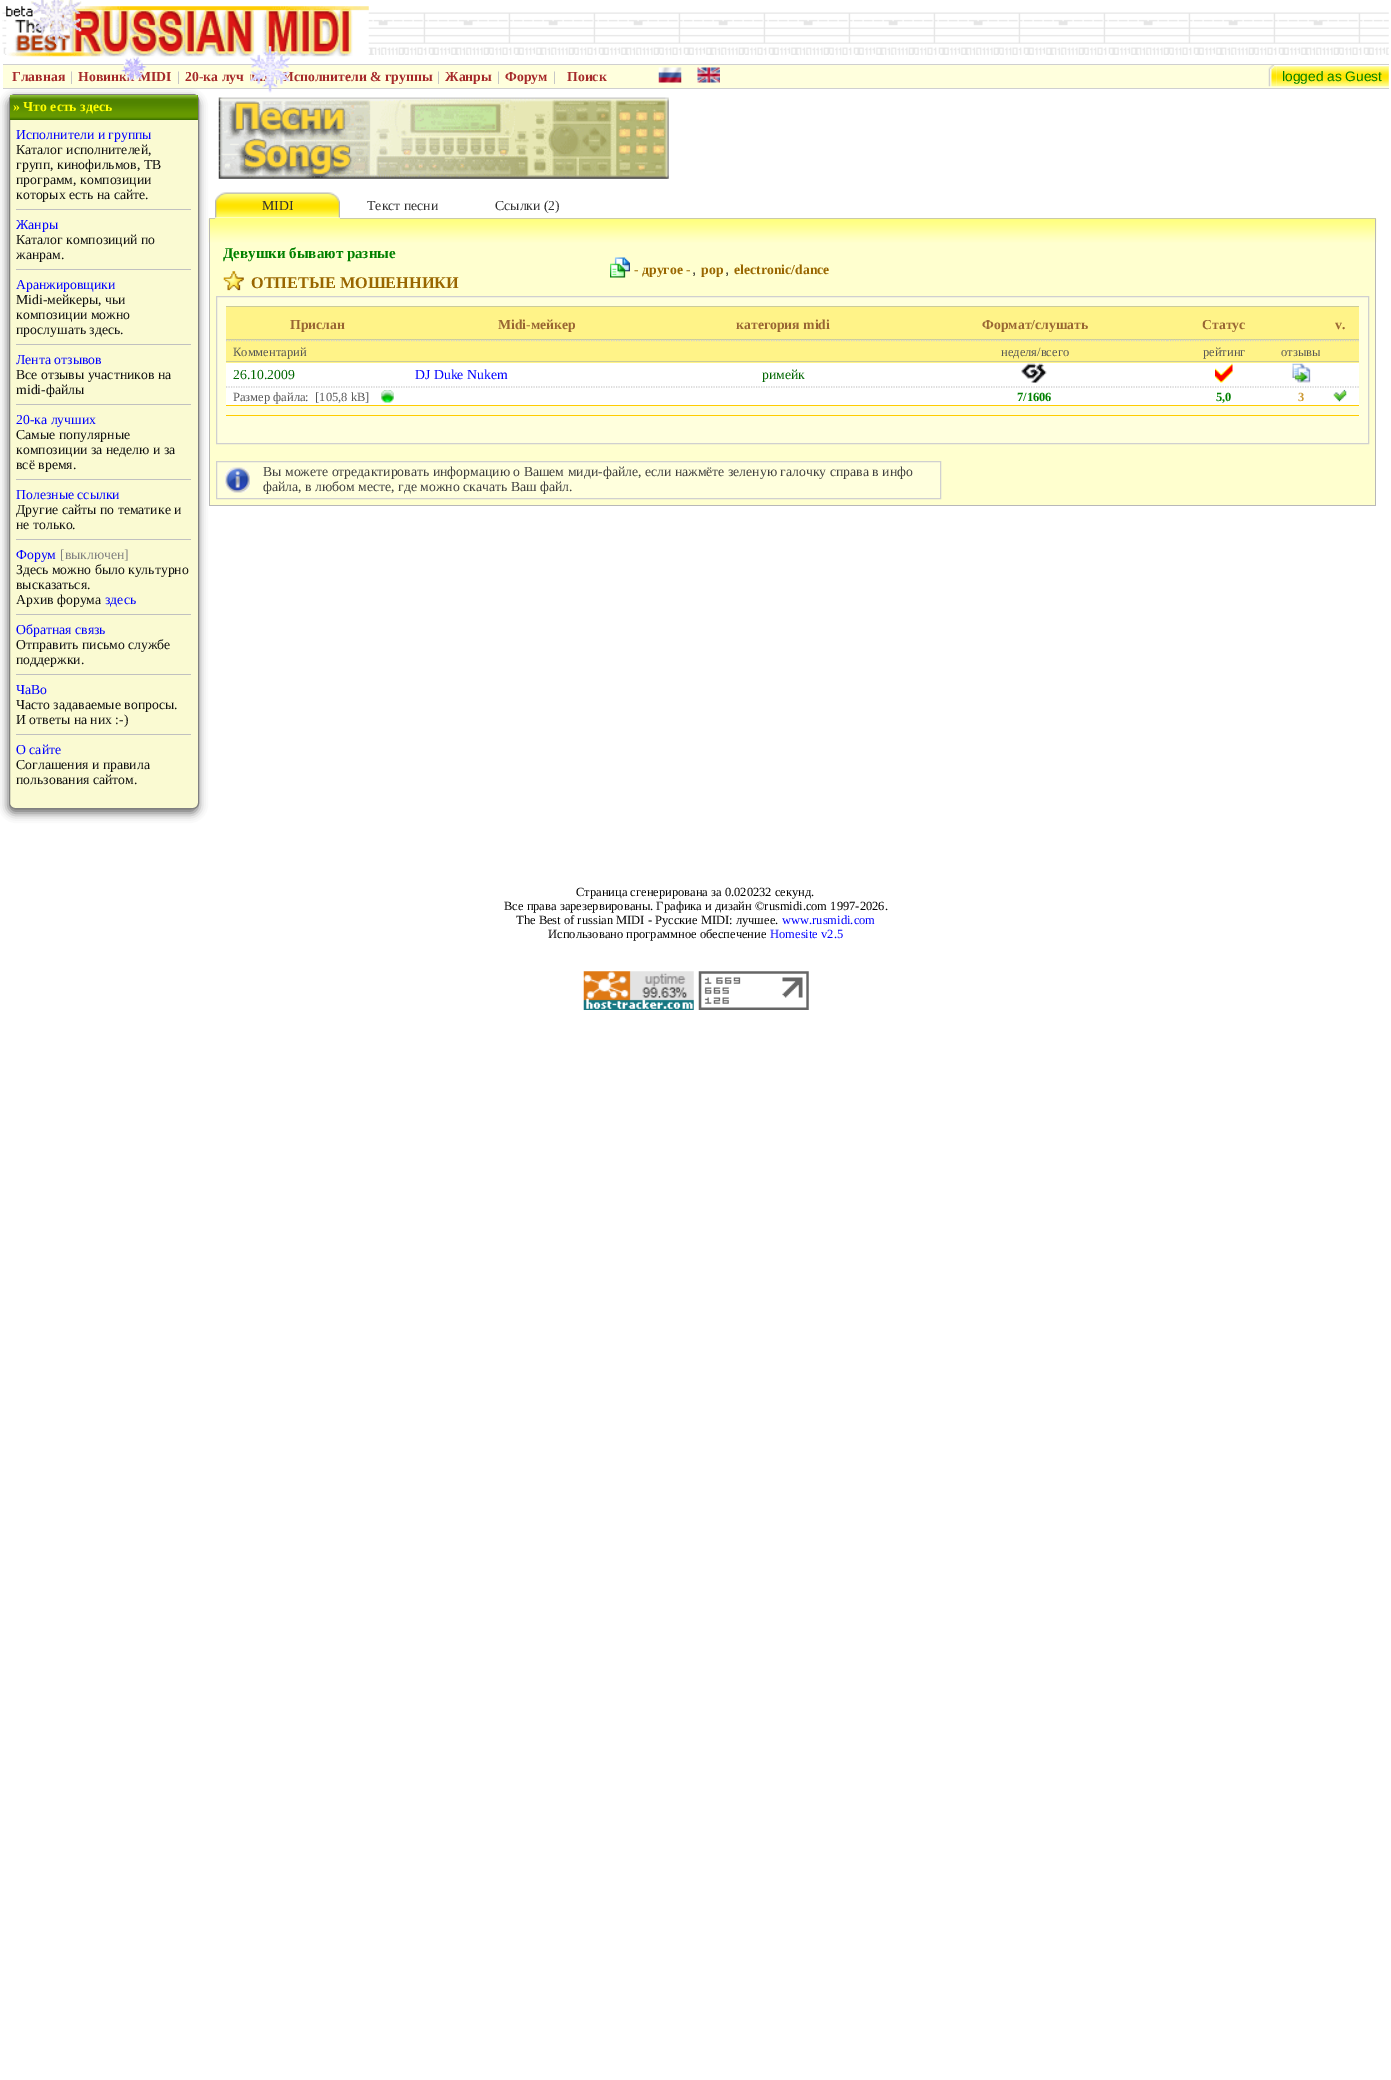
%!PS-Adobe-3.0
%%BoundingBox: 0 0 1391 2080
%%LanguageLevel: 3
%%Pages: 1
%%EndComments
%%BeginProlog
/setink { 3 { 255 div 3 1 roll } repeat setrgbcolor } def
/usefont { [ exch dup neg 0 0 3 -1 roll 0 0 ] selectfont } def
/drawtext { setink usefont moveto show } def
/fillbox { setink rectfill } def
/setalpha { dup .setfillconstantalpha .setstrokeconstantalpha } def
/rrect { 5 dict begin { /r /h /w /y /x } { exch def } forall
  x r add y moveto x w add y 2 copy h add r arct x w add y h add x 1 index r arct
  x y h add x y r arct x y 2 copy exch w add exch r arct closepath end } def
/softshadow { 12 dict begin { /a /b /q /h /w /y /x } { exch def } forall gsave /was 0 def
  9 -2 -9 { dup b mul 4 div /e exch def 1 sub .425 mul 2.718 exch exp 1 add a .99 .min exch div /now exch def
    1 1 now sub 1 was sub div sub setalpha /was now def
    w h .min e 2 mul add 0 gt { x e sub y e sub w e 2 mul add h e 2 mul add
      q e add b .6 mul add w h .min 2 div e add .min 0 .max rrect fill } if } for grestore end } def
/drawimage { 5 dict begin { /h /w /y /x /name } { exch def } forall
  gsave x y translate w h scale
  w h 8 [w 0 0 h 0 0] name (r) file false 3 colorimage grestore end } def
%%EndProlog
%%BeginSetup
<< /PageSize [1391 2080] /PageUsesTransparency true >> setpagedevice
%%EndSetup
%%Page: 1 1
0 .pushpdf14devicefilter
0 2080 translate 1 -1 scale
4 setmiterlimit
0 0 1391 2080 255 255 255 fillbox
(assets/img2.rgb) 2 12 1387 43 drawimage
(assets/img3.rgb) 6 6 363 51 drawimage
(assets/img1.rgb) 31 0 51 45 drawimage
3 65 1386 23 255 255 221 fillbox
3 64 1386 1 208 208 208 fillbox
(Новинки MIDI) 78 81 /LiberationSerif-Bold 13.75 165 42 42 drawtext
(assets/img4.rgb) 121 56 26 26 drawimage
3 88 1386 1 208 208 208 fillbox
(Исполнители & группы) 283 81 /LiberationSerif-Bold 13.75 165 42 42 drawtext
(assets/img5.rgb) 250 46 40 47 drawimage
(Главная) 12 81 /LiberationSerif-Bold 13.75 165 42 42 drawtext
(|) 70 81 /LiberationSerif-Bold 13.75 198 198 198 drawtext
(|) 177 81 /LiberationSerif-Bold 13.75 198 198 198 drawtext
(20-ка луч) 185 81 /LiberationSerif-Bold 13.75 165 42 42 drawtext
(|) 437 81 /LiberationSerif-Bold 13.75 198 198 198 drawtext
(Жанры) 445 81 /LiberationSerif-Bold 13.75 165 42 42 drawtext
(|) 497 81 /LiberationSerif-Bold 13.75 198 198 198 drawtext
(Форум) 505 81 /LiberationSerif-Bold 13.75 165 42 42 drawtext
(|) 553 81 /LiberationSerif-Bold 13.75 198 198 198 drawtext
(Поиск) 567 81 /LiberationSerif-Bold 13.75 165 42 42 drawtext
(assets/img6.rgb) 658 67 24 16 drawimage
(assets/img7.rgb) 697 67 23 16 drawimage
(assets/img8.rgb) 1268 65 9 22 drawimage
(assets/img9.rgb) 1276 65 113 22 drawimage
(logged as Guest) 1282 81 /LiberationSans-Regular 13.75 0 128 0 drawtext
209 218 6 1 184 184 184 fillbox
210 242 1165 263 255 255 207 fillbox
215 218 125 1 255 255 127 fillbox
340 218 1036 1 184 184 184 fillbox
(assets/img13.rgb) 208 218 1169 25 drawimage
209 219 1 24 184 184 184 fillbox
1375 219 1 287 184 184 184 fillbox
209 505 1167 1 184 184 184 fillbox
209 243 1 263 184 184 184 fillbox
108 108 108 setink
8 98 190 715 6 4.5 1 softshadow
250 250 210 setink
9.5 94.5 189 714 5.5 rrect gsave fill grestore
128 128 128 setink
stroke
197 95 1 25 94 145 0 fillbox
(assets/img10.rgb) 10 95 188 25 drawimage
(» Что есть здесь) 13 111 /LiberationSerif-Bold 13.75 255 255 0 drawtext
(Исполнители и группы) 16 139 /LiberationSerif-Regular 13.75 0 0 255 drawtext
(Каталог исполнителей,) 16 154 /LiberationSerif-Regular 13.75 16 16 16 drawtext
(групп, кинофильмов, ТВ) 16 169 /LiberationSerif-Regular 13.75 16 16 16 drawtext
(программ, композиции) 16 184 /LiberationSerif-Regular 13.75 16 16 16 drawtext
(которых есть на сайте.) 16 199 /LiberationSerif-Regular 13.75 16 16 16 drawtext
16 209 175 1 192 192 192 fillbox
(Жанры) 16 229 /LiberationSerif-Regular 13.75 0 0 255 drawtext
(Каталог композиций по) 16 244 /LiberationSerif-Regular 13.75 16 16 16 drawtext
(жанрам.) 16 259 /LiberationSerif-Regular 13.75 16 16 16 drawtext
16 269 175 1 192 192 192 fillbox
(Аранжировщики) 16 289 /LiberationSerif-Regular 13.75 0 0 255 drawtext
(Midi-мейкеры, чьи) 16 304 /LiberationSerif-Regular 13.75 16 16 16 drawtext
(композиции можно) 16 319 /LiberationSerif-Regular 13.75 16 16 16 drawtext
(прослушать здесь.) 16 334 /LiberationSerif-Regular 13.75 16 16 16 drawtext
16 344 175 1 192 192 192 fillbox
(Лента отзывов) 16 364 /LiberationSerif-Regular 13.75 0 0 255 drawtext
(Все отзывы участников на) 16 379 /LiberationSerif-Regular 13.75 16 16 16 drawtext
(midi-файлы) 16 394 /LiberationSerif-Regular 13.75 16 16 16 drawtext
16 404 175 1 192 192 192 fillbox
(20-ка лучших) 16 424 /LiberationSerif-Regular 13.75 0 0 255 drawtext
(Самые популярные) 16 439 /LiberationSerif-Regular 13.75 16 16 16 drawtext
(композиции за неделю и за) 16 454 /LiberationSerif-Regular 13.75 16 16 16 drawtext
(всё время.) 16 469 /LiberationSerif-Regular 13.75 16 16 16 drawtext
16 479 175 1 192 192 192 fillbox
(Полезные ссылки) 16 499 /LiberationSerif-Regular 13.75 0 0 255 drawtext
(Другие сайты по тематике и) 16 514 /LiberationSerif-Regular 13.75 16 16 16 drawtext
(не только.) 16 529 /LiberationSerif-Regular 13.75 16 16 16 drawtext
16 539 175 1 192 192 192 fillbox
(Форум) 16 559 /LiberationSerif-Regular 13.75 0 0 255 drawtext
([выключен]) 60 559 /LiberationSerif-Regular 13.75 128 128 128 drawtext
(Здесь можно было культурно) 16 574 /LiberationSerif-Regular 13.75 16 16 16 drawtext
(высказаться.) 16 589 /LiberationSerif-Regular 13.75 16 16 16 drawtext
(Архив форума) 16 604 /LiberationSerif-Regular 13.75 16 16 16 drawtext
(здесь) 105 604 /LiberationSerif-Regular 13.75 0 0 255 drawtext
16 614 175 1 192 192 192 fillbox
(Обратная связь) 16 634 /LiberationSerif-Regular 13.75 0 0 255 drawtext
(Отправить письмо службе) 16 649 /LiberationSerif-Regular 13.75 16 16 16 drawtext
(поддержки.) 16 664 /LiberationSerif-Regular 13.75 16 16 16 drawtext
16 674 175 1 192 192 192 fillbox
(ЧаВо) 16 694 /LiberationSerif-Regular 13.75 0 0 255 drawtext
(Часто задаваемые вопросы.) 16 709 /LiberationSerif-Regular 13.75 16 16 16 drawtext
(И ответы на них :-\)) 16 724 /LiberationSerif-Regular 13.75 16 16 16 drawtext
16 734 175 1 192 192 192 fillbox
(О сайте) 16 754 /LiberationSerif-Regular 13.75 0 0 255 drawtext
(Соглашения и правила) 16 769 /LiberationSerif-Regular 13.75 16 16 16 drawtext
(пользования сайтом.) 16 784 /LiberationSerif-Regular 13.75 16 16 16 drawtext
(assets/img11.rgb) 218 97 451 82 drawimage
(assets/img12.rgb) 215 192 125 26 drawimage
(MIDI) 262 210 /LiberationSerif-Regular 13.75 48 48 48 drawtext
(Текст песни) 367 210 /LiberationSerif-Regular 13.75 48 48 48 drawtext
(Ссылки \(2\)) 495 210 /LiberationSerif-Regular 13.75 48 48 48 drawtext
(Девушки бывают разные) 223 258 /LiberationSerif-Bold 15 0 128 0 drawtext
(assets/img14.rgb) 610 257 20 21 drawimage
(- другое -) 634 274 /LiberationSerif-Bold 13.75 153 102 0 drawtext
(,) 692 274 /LiberationSans-Regular 15 16 16 16 drawtext
(pop) 701 274 /LiberationSerif-Bold 13.75 153 102 0 drawtext
(,) 725 274 /LiberationSans-Regular 15 16 16 16 drawtext
(electronic/dance) 734 274 /LiberationSerif-Bold 13.75 153 102 0 drawtext
(assets/img15.rgb) 223 271 21 20 drawimage
(ОТПЕТЫЕ МОШЕННИКИ) 251 288 /LiberationSerif-Bold 16.25 153 102 0 drawtext
255 255 221 setink
216.5 296.5 moveto 1368.5 296.5 lineto 1368.5 443.5 lineto 216.5 443.5 lineto closepath gsave fill grestore
208 208 208 setink
stroke
226 307 1133 32 255 243 136 fillbox
226 306 1133 1 204 204 153 fillbox
226 339 1133 1 204 204 153 fillbox
(Прислан) 290 329 /LiberationSerif-Bold 13.75 153 102 51 drawtext
(Midi-мейкер) 498 329 /LiberationSerif-Bold 13.75 153 102 51 drawtext
(категория midi) 736 329 /LiberationSerif-Bold 13.75 153 102 51 drawtext
(Формат/слушать) 982 329 /LiberationSerif-Bold 13.75 153 102 51 drawtext
(Статус) 1202 329 /LiberationSerif-Bold 13.75 153 102 51 drawtext
(v.) 1335 329 /LiberationSerif-Bold 13.75 153 102 51 drawtext
226 340 1133 23 255 243 136 fillbox
208 208 208 setink
1.2 setlinewidth
[1.25 1.25] 0 setdash
1322.5 340.5 moveto 1359 340.5 lineto stroke
226 340.5 moveto 901 340.5 lineto stroke
226 361 1133 1 204 204 153 fillbox
(Комментарий) 233 356 /LiberationSerif-Regular 12.5 85 85 85 drawtext
208 208 208 setink
901 340.5 moveto 1167.5 340.5 lineto stroke
(неделя/всего) 1001 356 /LiberationSerif-Regular 12.5 85 85 85 drawtext
208 208 208 setink
1167.5 340.5 moveto 1280 340.5 lineto stroke
(рейтинг) 1203 356 /LiberationSerif-Regular 12.5 85 85 85 drawtext
208 208 208 setink
1280 340.5 moveto 1322.5 340.5 lineto stroke
(отзывы) 1281 356 /LiberationSerif-Regular 12.5 85 85 85 drawtext
226 363 1133 42 255 255 255 fillbox
(26.10.2009) 233 379 /LiberationSerif-Regular 13.75 0 102 0 drawtext
(DJ Duke Nukem) 415 379 /LiberationSerif-Regular 13.75 0 0 255 drawtext
(римейк) 762 379 /LiberationSerif-Regular 13.75 0 102 0 drawtext
(assets/img16.rgb) 1021 363 26 20 drawimage
(assets/img17.rgb) 1215 363 18 20 drawimage
(assets/img18.rgb) 1292 363 19 20 drawimage
208 208 208 setink
226 387 moveto 901 387 lineto stroke
(Размер файла:  [105,8 kB]) 233 401 /LiberationSerif-Regular 12.5 85 85 85 drawtext
(assets/img19.rgb) 381 390 13 13 drawimage
208 208 208 setink
901 387 moveto 1167.5 387 lineto stroke
(7/1606) 1017 401 /LiberationSerif-Bold 12.5 0 128 0 drawtext
208 208 208 setink
1167.5 387 moveto 1280 387 lineto stroke
(5,0) 1216 401 /LiberationSerif-Bold 12.5 0 128 0 drawtext
208 208 208 setink
1280 387 moveto 1322.5 387 lineto stroke
(3) 1298 401 /LiberationSerif-Bold 12.5 204 153 51 drawtext
208 208 208 setink
1322.5 387 moveto 1359 387 lineto stroke
(assets/img20.rgb) 1333 389 14 13 drawimage
226 405 1133 1 255 204 0 fillbox
226 415 1133 1 255 204 0 fillbox
255 255 221 setink
216.5 461.5 moveto 940.5 461.5 lineto 940.5 498.5 lineto 216.5 498.5 lineto closepath gsave fill grestore
208 208 208 setink
1 setlinewidth
[] 0 setdash
stroke
(assets/img21.rgb) 225 467 25 26 drawimage
(Вы можете отредактировать информацию о Вашем миди-файле, если нажмёте зеленую галочку справа в инфо) 263 476 /LiberationSerif-Regular 13.75 64 64 64 drawtext
(файла, в любом месте, где можно скачать Ваш файл.) 263 491 /LiberationSerif-Regular 13.75 64 64 64 drawtext
(Страница сгенерирована за 0.020232 секунд.) 576 896 /LiberationSerif-Regular 12.5 0 0 0 drawtext
(Все права зарезервированы. Графика и дизайн ©rusmidi.com 1997-2026.) 504 910 /LiberationSerif-Regular 12.5 0 0 0 drawtext
(The Best of russian MIDI - Русские MIDI: лучшее.) 516 924 /LiberationSerif-Regular 12.5 0 0 0 drawtext
(www.rusmidi.com) 782 924 /LiberationSerif-Regular 12.5 0 0 255 drawtext
(Использовано программное обеспечение) 548 938 /LiberationSerif-Regular 12.5 0 0 0 drawtext
(Homesite v2.5) 770 938 /LiberationSerif-Regular 12.5 0 0 255 drawtext
(assets/img22.rgb) 583 971 111 39 drawimage
(assets/img23.rgb) 698 971 111 39 drawimage
.poppdf14devicefilter showpage
%%EOF
